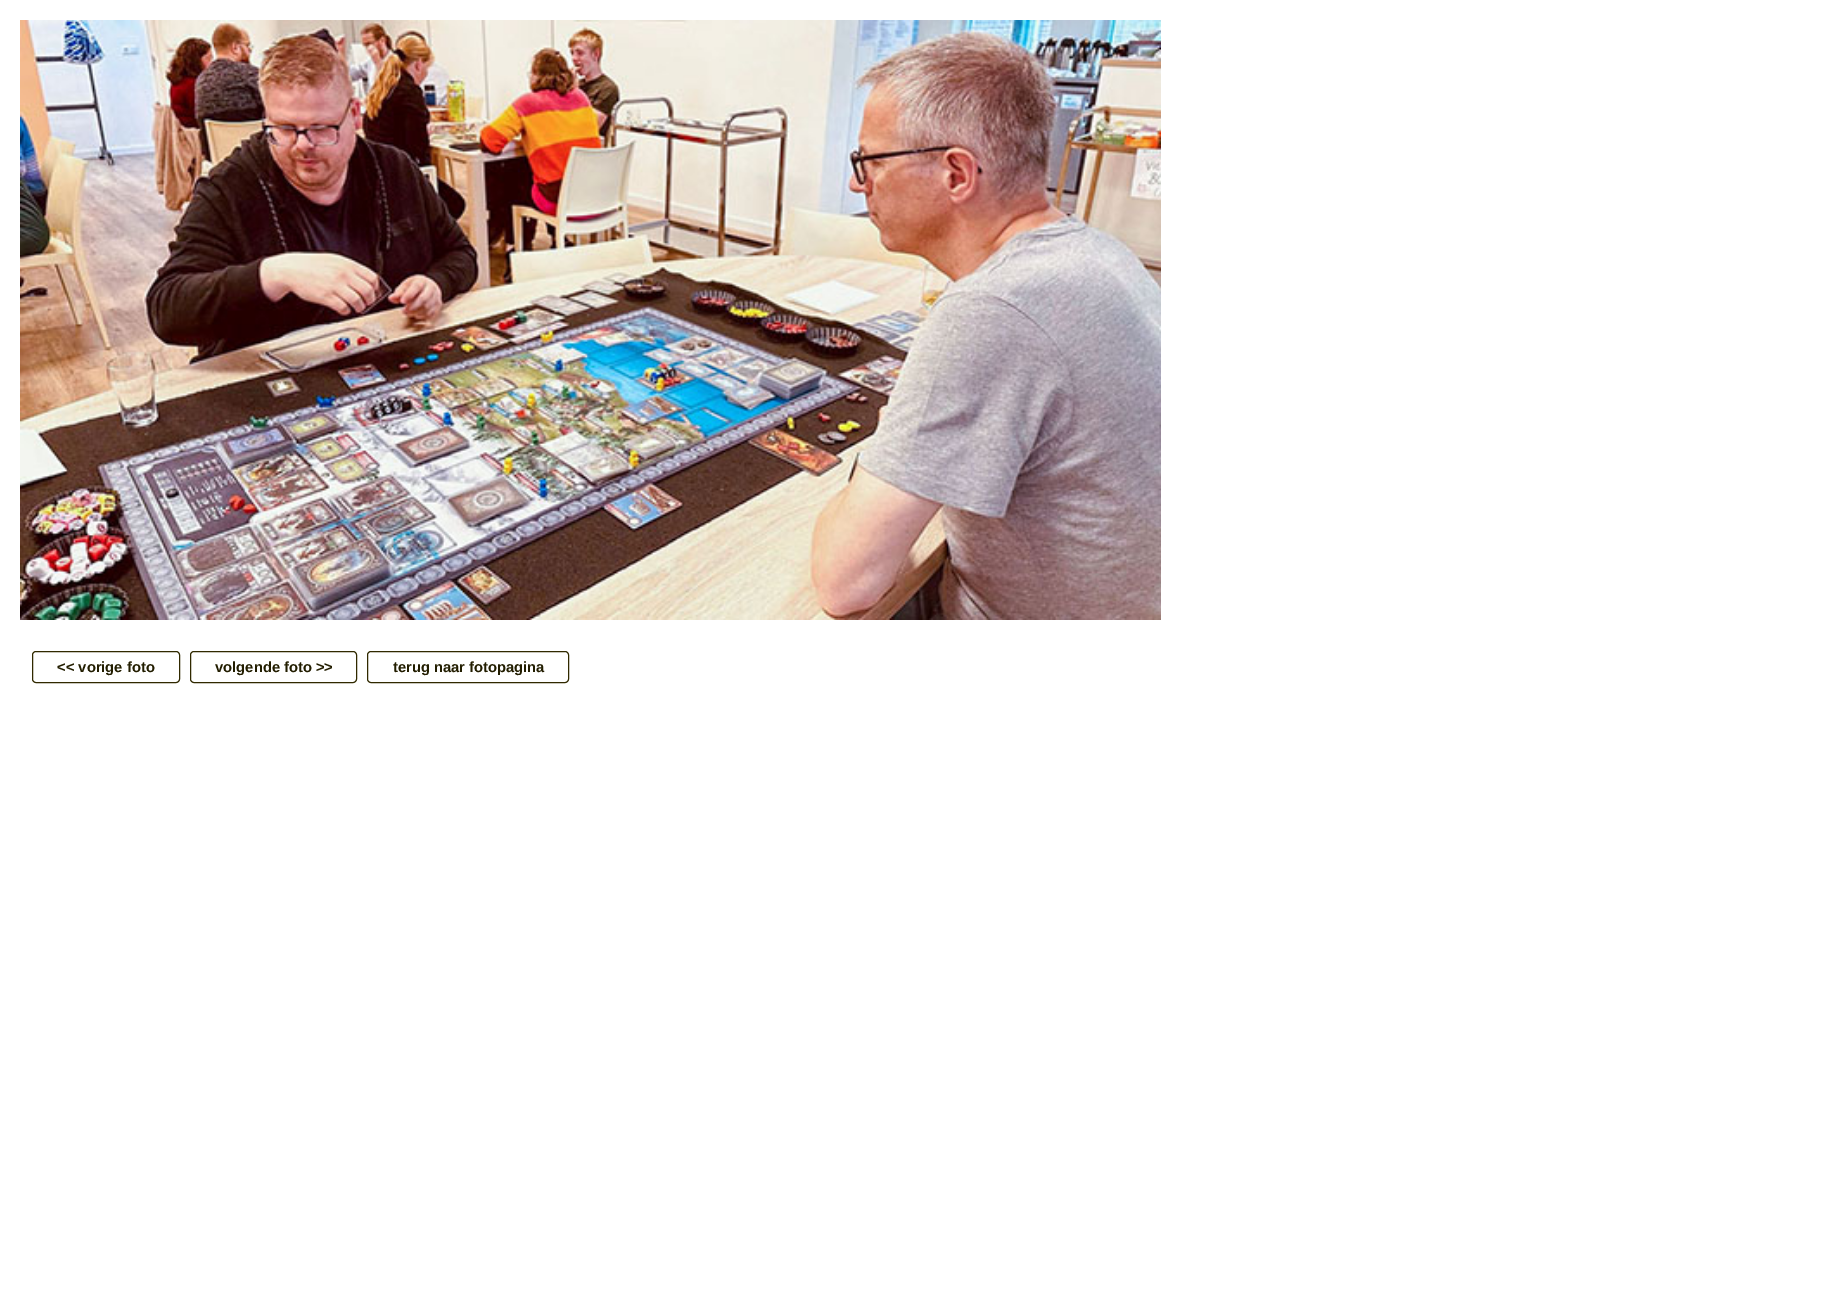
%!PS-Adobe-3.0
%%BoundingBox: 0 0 1845 1304
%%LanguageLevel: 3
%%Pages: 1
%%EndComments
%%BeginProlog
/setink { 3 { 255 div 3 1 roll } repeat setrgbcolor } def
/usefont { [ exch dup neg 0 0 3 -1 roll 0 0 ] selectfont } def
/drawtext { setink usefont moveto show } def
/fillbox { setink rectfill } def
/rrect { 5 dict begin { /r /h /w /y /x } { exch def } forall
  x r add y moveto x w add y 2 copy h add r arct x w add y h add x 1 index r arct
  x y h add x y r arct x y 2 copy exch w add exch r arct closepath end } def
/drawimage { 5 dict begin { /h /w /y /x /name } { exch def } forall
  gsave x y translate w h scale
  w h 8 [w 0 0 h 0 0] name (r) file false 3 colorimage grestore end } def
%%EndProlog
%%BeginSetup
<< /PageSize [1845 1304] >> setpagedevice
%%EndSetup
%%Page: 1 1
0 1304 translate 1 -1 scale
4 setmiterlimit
0 0 1845 1304 255 255 255 fillbox
(assets/img1.rgb) 20 20 1141 600 drawimage
48 41 0 setink
32.5 651.5 147 31 3.5 rrect stroke
(<< vorige foto) 57 672 /LiberationSans-Bold 14.75 34 29 0 drawtext
48 41 0 setink
190.5 651.5 166 31 3.5 rrect stroke
(volgende foto >>) 215 672 /LiberationSans-Bold 14.75 34 29 0 drawtext
48 41 0 setink
367.5 651.5 201 31 3.5 rrect stroke
(terug naar fotopagina) 393 672 /LiberationSans-Bold 14.75 34 29 0 drawtext
showpage
%%EOF
